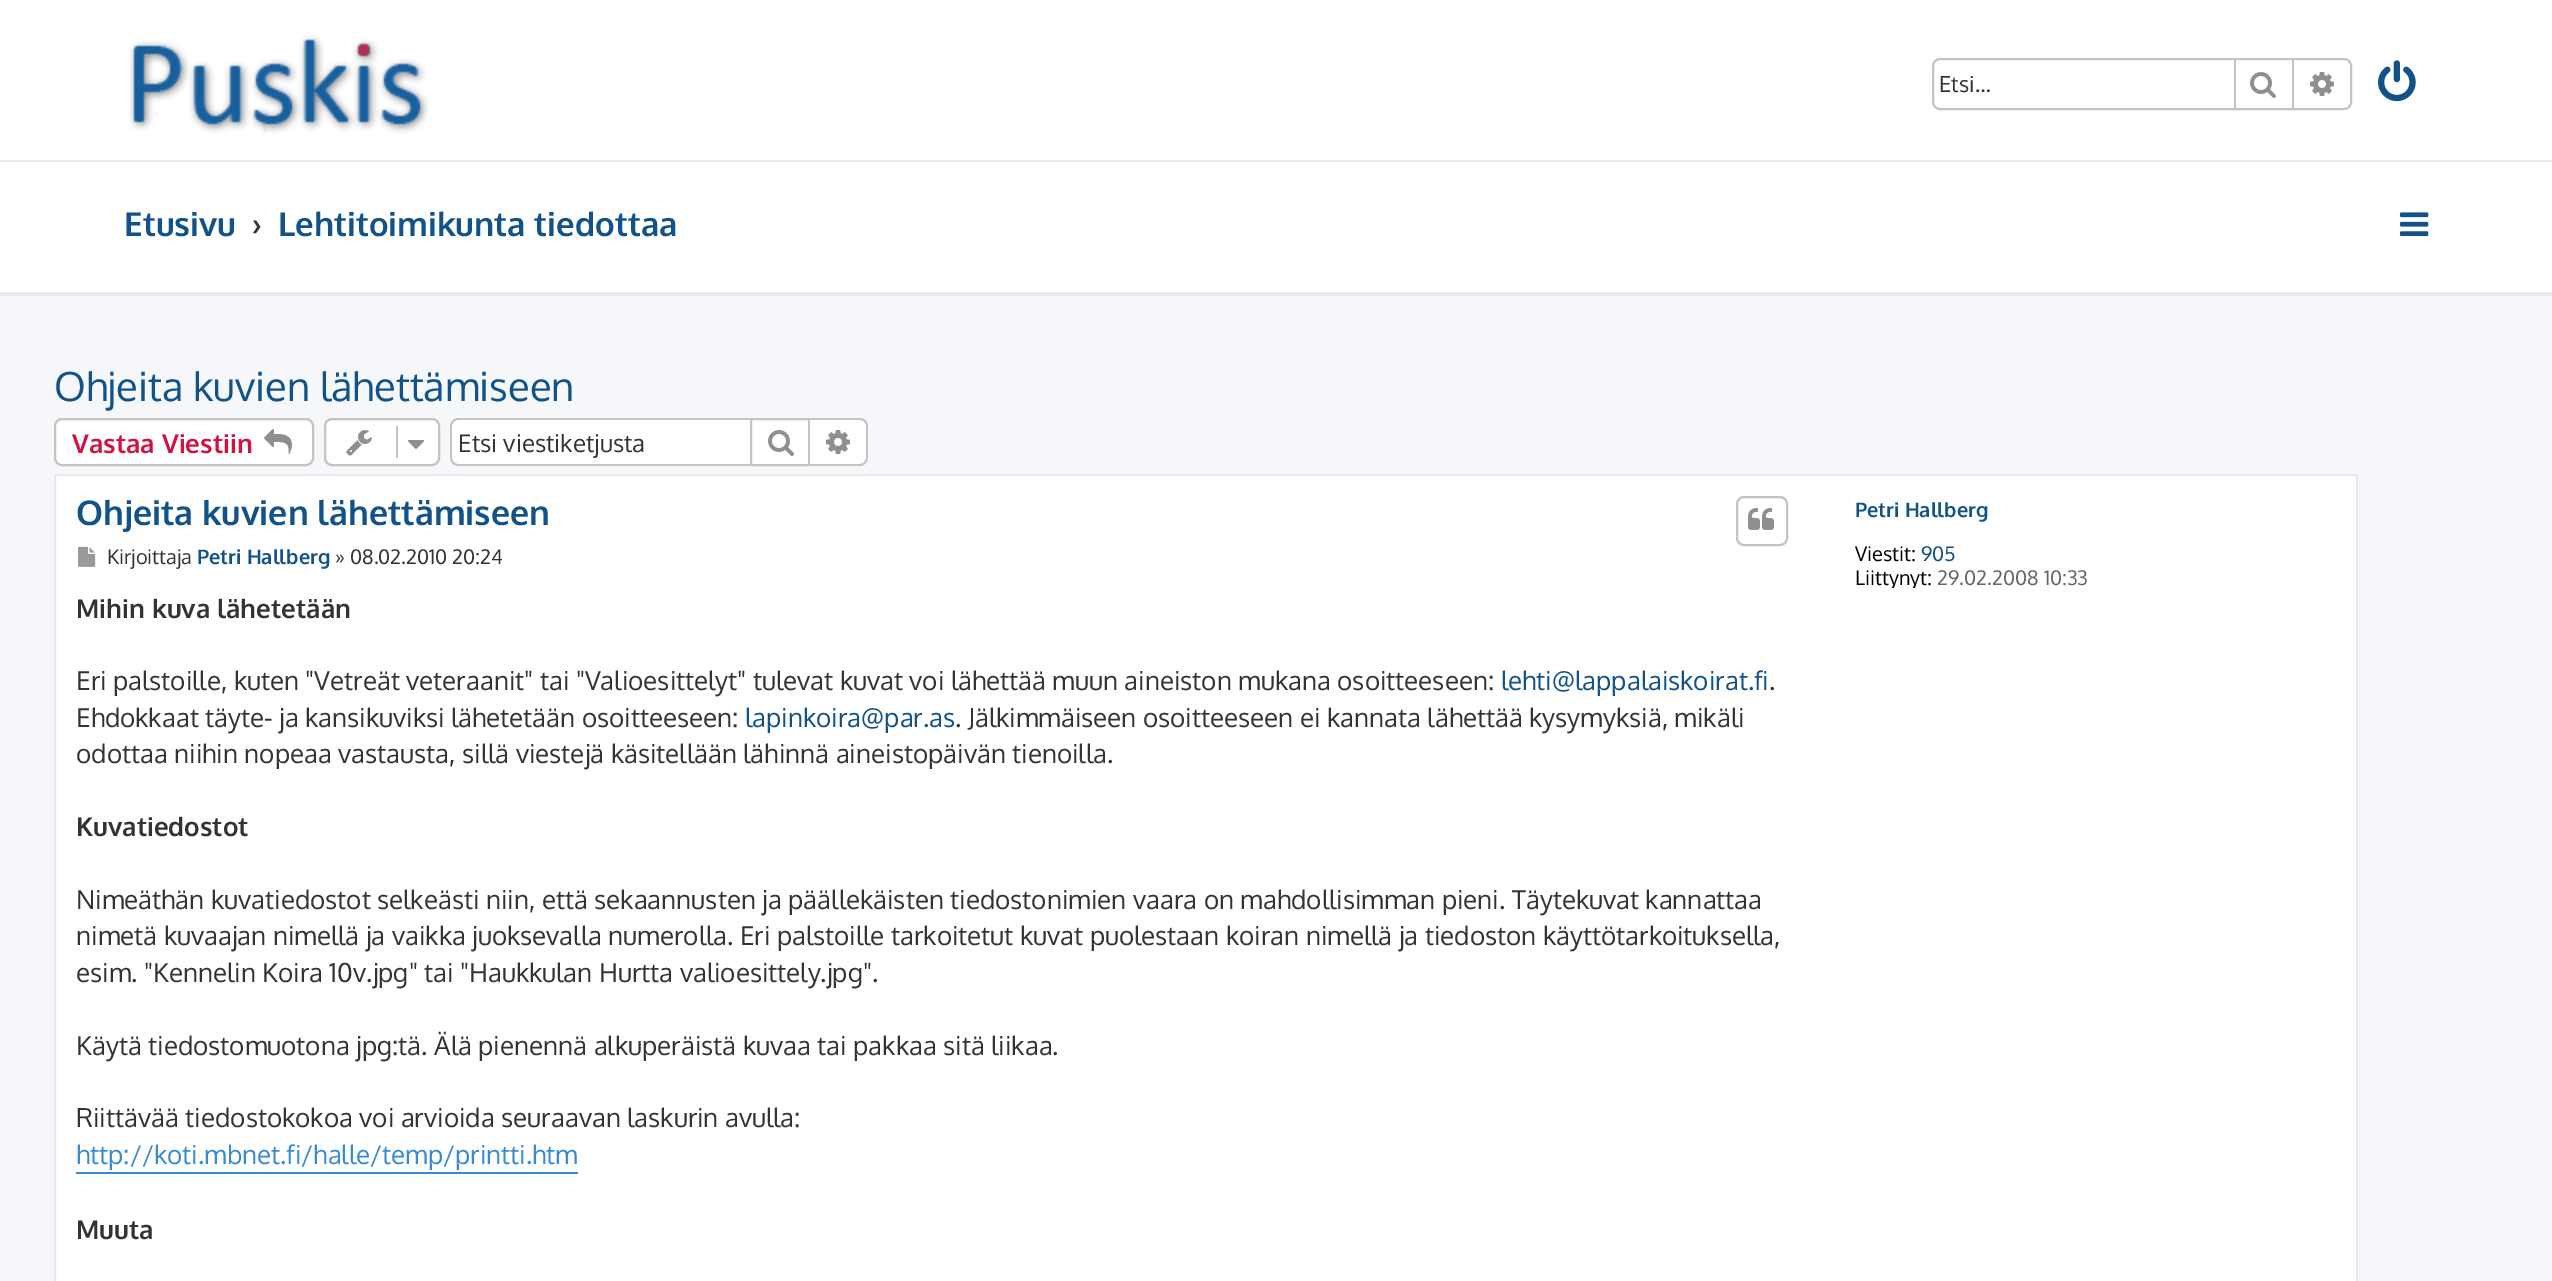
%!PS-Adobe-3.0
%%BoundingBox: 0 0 2552 1281
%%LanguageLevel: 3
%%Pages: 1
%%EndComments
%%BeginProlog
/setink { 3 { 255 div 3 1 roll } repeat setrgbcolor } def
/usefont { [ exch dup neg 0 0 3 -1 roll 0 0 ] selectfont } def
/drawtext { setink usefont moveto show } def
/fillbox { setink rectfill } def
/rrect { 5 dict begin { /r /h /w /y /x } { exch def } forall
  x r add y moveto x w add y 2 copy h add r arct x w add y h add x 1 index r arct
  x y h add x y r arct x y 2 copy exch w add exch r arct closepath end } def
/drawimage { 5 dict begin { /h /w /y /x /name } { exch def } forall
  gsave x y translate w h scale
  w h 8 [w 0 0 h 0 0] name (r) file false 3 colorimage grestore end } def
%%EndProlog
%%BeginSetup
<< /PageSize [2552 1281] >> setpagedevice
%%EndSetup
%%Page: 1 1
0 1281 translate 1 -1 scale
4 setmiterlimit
0 0 2552 1281 245 247 250 fillbox
0 0 2552 160 255 255 255 fillbox
0 160 2552 2 230 233 237 fillbox
(assets/img1.rgb) 129 35 300 99 drawimage
199 195 191 setink
2 setlinewidth
1933 59 418 50 7 rrect stroke
(Etsi…) 1939 92 /Oxygen-Regular 22 51 51 51 drawtext
2292 60 2 48 199 195 191 fillbox
2234 60 2 48 199 195 191 fillbox
(assets/img2.rgb) 2250 72 26 26 drawimage
(assets/img3.rgb) 2310 72 24 24 drawimage
(assets/img4.rgb) 2378 60 38 42 drawimage
0 162 2552 130 255 255 255 fillbox
0 292 2552 4 230 233 237 fillbox
(Etusivu) 124 236 /Oxygen-Bold 33 16 82 137 drawtext
(›) 252 236 /Oxygen-Bold 33 51 51 51 drawtext
(Lehtitoimikunta tiedottaa) 278 236 /Oxygen-Bold 33 16 82 137 drawtext
(assets/img5.rgb) 2400 212 29 24 drawimage
(Ohjeita kuvien lähettämiseen) 54 401 /Oxygen-Regular 40 16 82 137 drawtext
255 255 255 setink
55 419 258 46 7 rrect gsave fill grestore
199 195 191 setink
stroke
(Vastaa Viestiin) 72 453 /Oxygen-Bold 26 211 17 65 drawtext
(assets/img6.rgb) 264 429 28 25 drawimage
255 255 255 setink
325 419 114 46 7 rrect gsave fill grestore
199 195 191 setink
stroke
(assets/img7.rgb) 346 430 26 26 drawimage
396 426 2 32 199 195 191 fillbox
(assets/img8.rgb) 408 440 16 9 drawimage
255 255 255 setink
458 420 moveto 750 420 lineto 750 464 lineto 458 464 lineto 454.5 464 452 461.5 452 458 curveto 452 426 lineto 452 422.5 454.5 420 458 420 curveto closepath fill
199 195 191 setink
458 418 moveto 750 418 lineto 750 466 lineto 458 466 lineto 454 466 450 462 450 458 curveto 450 426 lineto 450 422 454 418 458 418 curveto closepath 458 420 moveto 750 420 lineto 750 464 lineto 458 464 lineto 455 464 452 461 452 458 curveto 452 426 lineto 452 423 455 420 458 420 curveto closepath eofill
(Etsi viestiketjusta) 458 452 /Oxygen-Regular 24.25 51 51 51 drawtext
255 255 255 setink
751 419 moveto 809 419 lineto 809 465 lineto 751 465 lineto closepath gsave fill grestore
199 195 191 setink
stroke
(assets/img2.rgb) 768 430 26 26 drawimage
255 255 255 setink
810 420 moveto 860 420 lineto 863.5 420 866 422.5 866 426 curveto 866 458 lineto 866 461.5 863.5 464 860 464 curveto 810 464 lineto closepath fill
199 195 191 setink
810 418 moveto 860 418 lineto 864 418 868 422 868 426 curveto 868 458 lineto 868 462 864 466 860 466 curveto 810 466 lineto closepath 810 420 moveto 860 420 lineto 863 420 866 423 866 426 curveto 866 458 lineto 866 461 863 464 860 464 curveto 810 464 lineto closepath eofill
(assets/img3.rgb) 826 430 24 24 drawimage
255 255 255 setink
55 475 moveto 2357 475 lineto 2357 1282 lineto 55 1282 lineto closepath gsave fill grestore
230 233 237 setink
stroke
(Ohjeita kuvien lähettämiseen) 76 525 /Oxygen-Bold 34 16 82 137 drawtext
199 195 191 setink
1737 497 50 48 7 rrect stroke
(assets/img9.rgb) 1748 508 26 22 drawimage
(assets/img10.rgb) 78 546 18 21 drawimage
(Kirjoittaja) 107 564 /Oxygen-Regular 20 51 51 51 drawtext
(Petri Hallberg) 197 564 /Oxygen-Bold 20 16 82 137 drawtext
(» 08.02.2010 20:24) 335 564 /Oxygen-Regular 20 51 51 51 drawtext
(Mihin kuva lähetetään) 76 618 /Oxygen-Bold 26 51 51 51 drawtext
(Eri palstoille, kuten "Vetreät veteraanit" tai "Valioesittelyt" tulevat kuvat voi lähettää muun aineiston mukana osoitteeseen:) 76 690 /Oxygen-Regular 26 51 51 51 drawtext
(lehti@lappalaiskoirat.fi) 1501 690 /Oxygen-Regular 26 16 82 137 drawtext
(.) 1769 690 /Oxygen-Regular 26 51 51 51 drawtext
(Ehdokkaat täyte- ja kansikuviksi lähetetään osoitteeseen:) 76 727 /Oxygen-Regular 26 51 51 51 drawtext
(lapinkoira@par.as) 745 727 /Oxygen-Regular 26 16 82 137 drawtext
(. Jälkimmäiseen osoitteeseen ei kannata lähettää kysymyksiä, mikäli) 955 727 /Oxygen-Regular 26 51 51 51 drawtext
(odottaa niihin nopeaa vastausta, sillä viestejä käsitellään lähinnä aineistopäivän tienoilla.) 76 763 /Oxygen-Regular 26 51 51 51 drawtext
(Kuvatiedostot) 76 836 /Oxygen-Bold 26 51 51 51 drawtext
(Nimeäthän kuvatiedostot selkeästi niin, että sekaannusten ja päällekäisten tiedostonimien vaara on mahdollisimman pieni. Täytekuvat kannattaa) 76 909 /Oxygen-Regular 26 51 51 51 drawtext
(nimetä kuvaajan nimellä ja vaikka juoksevalla numerolla. Eri palstoille tarkoitetut kuvat puolestaan koiran nimellä ja tiedoston käyttötarkoituksella,) 76 945 /Oxygen-Regular 26 51 51 51 drawtext
(esim. "Kennelin Koira 10v.jpg" tai "Haukkulan Hurtta valioesittely.jpg".) 76 982 /Oxygen-Regular 26 51 51 51 drawtext
(Käytä tiedostomuotona jpg:tä. Älä pienennä alkuperäistä kuvaa tai pakkaa sitä liikaa.) 76 1055 /Oxygen-Regular 26 51 51 51 drawtext
(Riittävää tiedostokokoa voi arvioida seuraavan laskurin avulla:) 76 1127 /Oxygen-Regular 26 51 51 51 drawtext
76 1172 502 2 54 138 210 fillbox
(http://koti.mbnet.fi/halle/temp/printti.htm) 76 1164 /Oxygen-Regular 26 54 138 210 drawtext
(Muuta) 76 1239 /Oxygen-Bold 26 51 51 51 drawtext
(Petri Hallberg) 1855 517 /Oxygen-Bold 20 16 82 137 drawtext
(Viestit:) 1855 561 /Oxygen-Regular 20 0 0 0 drawtext
(905) 1921 561 /Oxygen-Regular 20 16 82 137 drawtext
gsave
1854 564 482 24 rectclip
(Liittynyt:) 1855 585 /Oxygen-Regular 20 0 0 0 drawtext
grestore
(29.02.2008 10:33) 1937 585 /Oxygen-Regular 20 102 102 102 drawtext
showpage
%%EOF
